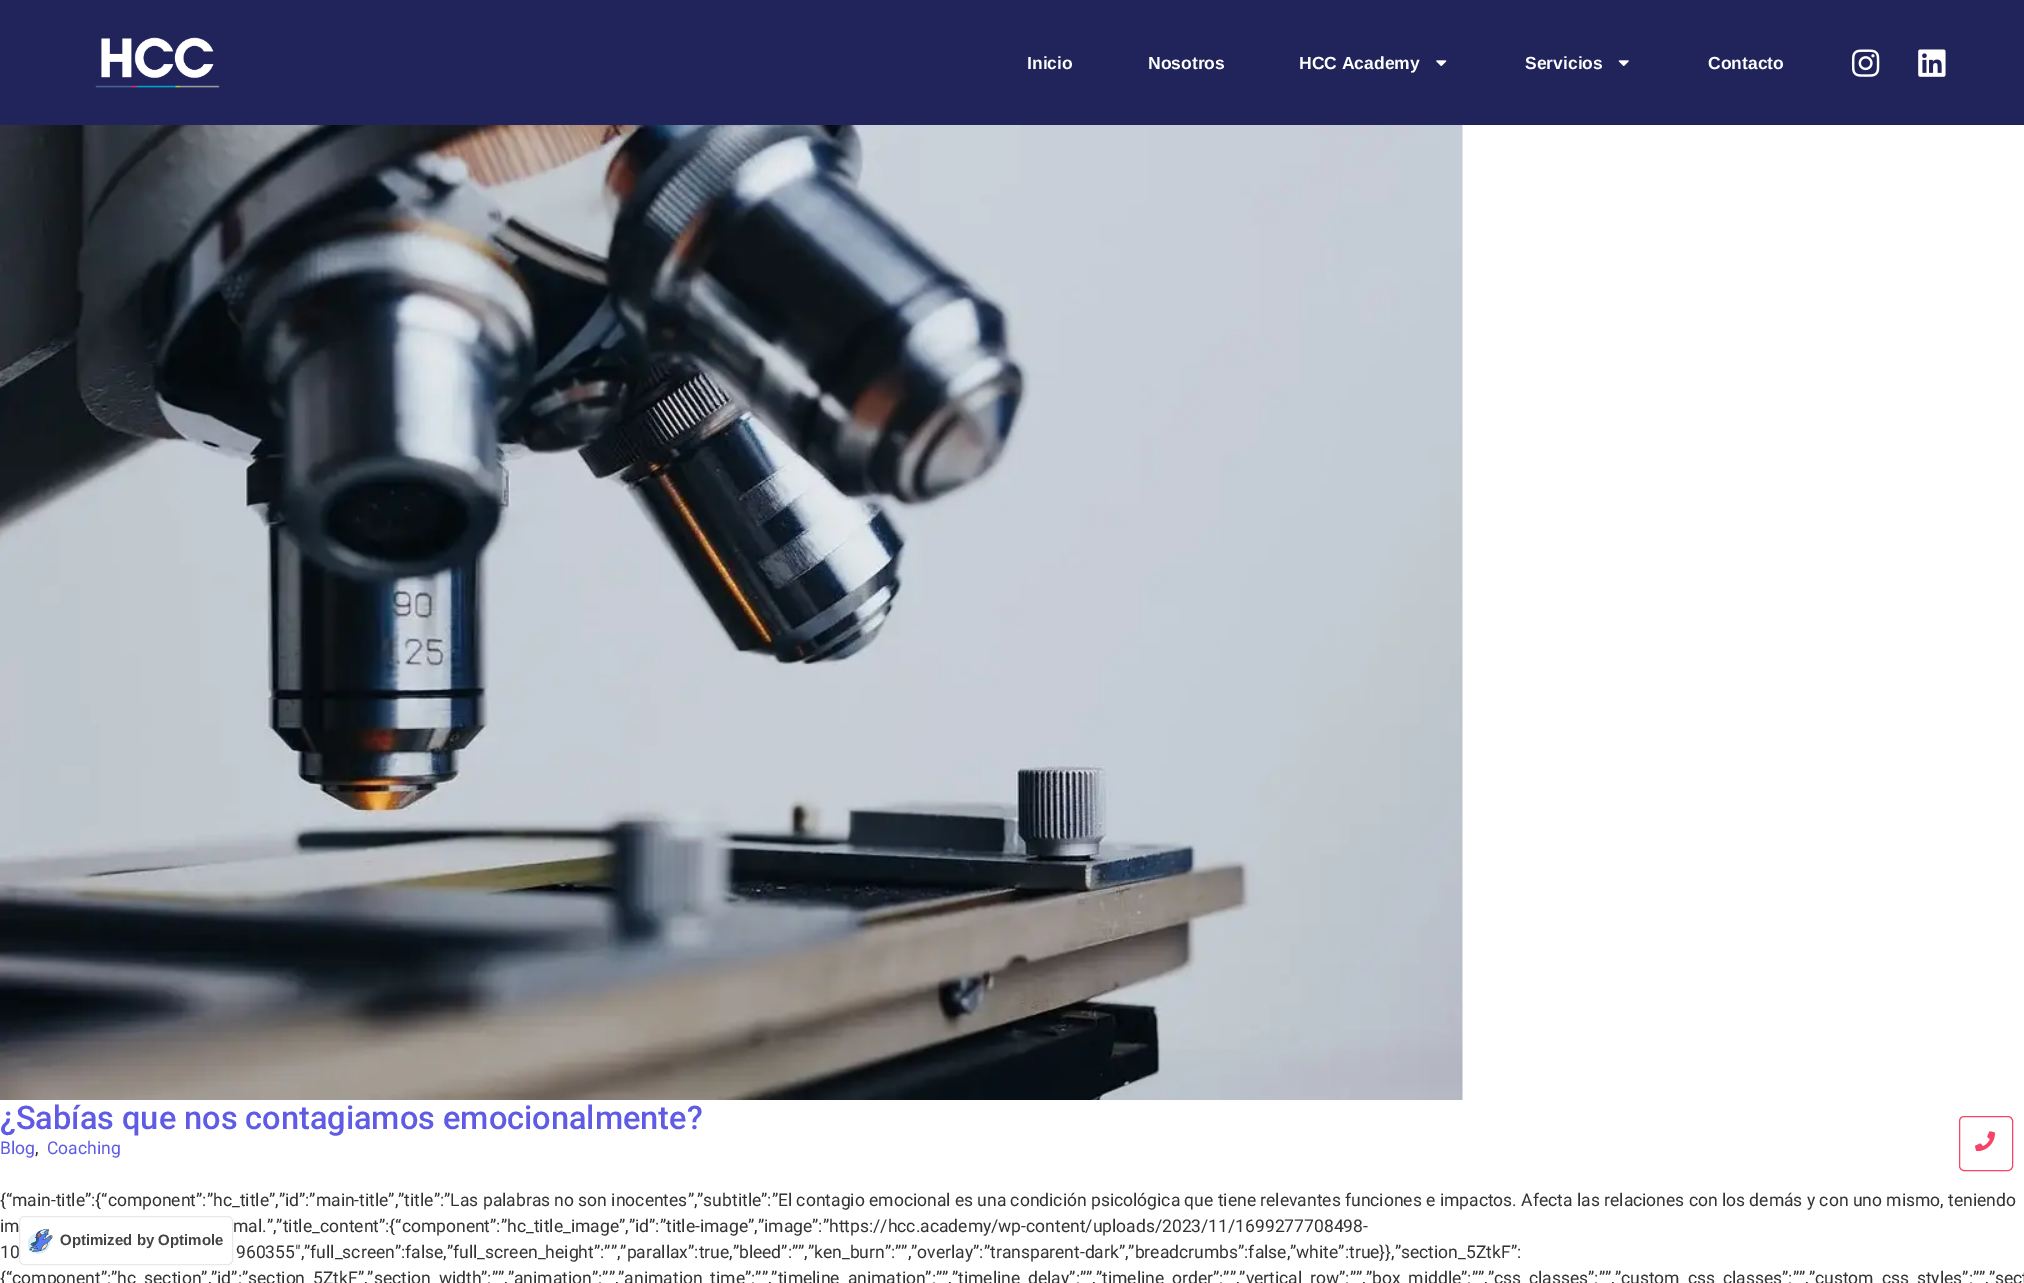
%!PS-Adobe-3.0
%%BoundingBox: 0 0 2024 1283
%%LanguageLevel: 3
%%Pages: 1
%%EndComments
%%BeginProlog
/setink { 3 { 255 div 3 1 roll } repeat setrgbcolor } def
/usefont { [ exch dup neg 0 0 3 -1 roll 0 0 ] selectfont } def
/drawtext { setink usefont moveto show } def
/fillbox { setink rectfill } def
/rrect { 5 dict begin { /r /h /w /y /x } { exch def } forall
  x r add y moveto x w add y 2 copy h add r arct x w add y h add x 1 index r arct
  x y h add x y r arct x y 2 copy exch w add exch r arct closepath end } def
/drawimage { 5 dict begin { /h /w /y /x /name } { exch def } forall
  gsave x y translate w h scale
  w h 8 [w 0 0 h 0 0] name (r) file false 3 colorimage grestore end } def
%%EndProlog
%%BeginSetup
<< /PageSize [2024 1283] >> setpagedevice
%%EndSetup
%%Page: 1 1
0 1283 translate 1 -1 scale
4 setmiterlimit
0 0 2024 1283 255 255 255 fillbox
0 0 2024 125 33 36 90 fillbox
(assets/img1.rgb) 95 37 125 51 drawimage
(Inicio) 1027 69 /LiberationSans-Bold 17.5 255 255 255 drawtext
(Nosotros) 1148 69 /LiberationSans-Bold 17.5 255 255 255 drawtext
(HCC Academy) 1299 69 /LiberationSans-Bold 17.5 255 255 255 drawtext
(assets/img2.rgb) 1436 60 11 6 drawimage
(Servicios) 1525 69 /LiberationSans-Bold 17.5 255 255 255 drawtext
(assets/img3.rgb) 1618 60 11 6 drawimage
(Contacto) 1708 69 /LiberationSans-Bold 17.5 255 255 255 drawtext
(assets/img4.rgb) 1851 49 29 28 drawimage
(assets/img5.rgb) 1918 49 28 28 drawimage
(assets/img6.rgb) 0 125 1463 975 drawimage
(¿Sabías que nos contagiamos emocionalmente?) 0 1129 /Roboto-Medium 32.5 96 91 229 drawtext
(Blog) 0 1154 /Roboto-Regular 17.5 96 91 229 drawtext
(,) 35 1154 /Roboto-Regular 17.5 51 51 51 drawtext
(Coaching) 47 1154 /Roboto-Regular 17.5 96 91 229 drawtext
({“main-title”:{“component”:”hc_title”,”id”:”main-title”,”title”:”Las palabras no son inocentes”,”subtitle”:”El contagio emocional es una condición psicológica que tiene relevantes funciones e impactos. Afecta las relaciones con los demás y con uno mismo, teniendo) 0 1206 /Roboto-Regular 17.5 51 51 51 drawtext
(im) 0 1232 /Roboto-Regular 17.5 51 51 51 drawtext
(mal.”,”title_content”:{“component”:”hc_title_image”,”id”:”title-image”,”image”:”https://hcc.academy/wp-content/uploads/2023/11/1699277708498-) 233 1232 /Roboto-Regular 17.5 51 51 51 drawtext
(10) 0 1258 /Roboto-Regular 17.5 51 51 51 drawtext
(960355″,”full_screen”:false,”full_screen_height”:””,”parallax”:true,”bleed”:””,”ken_burn”:””,”overlay”:”transparent-dark”,”breadcrumbs”:false,”white”:true}},”section_5ZtkF”:) 236 1258 /Roboto-Regular 17.5 51 51 51 drawtext
({“component”:”hc_section”,”id”:”section_5ZtkF”,”section_width”:””,”animation”:””,”animation_time”:””,”timeline_animation”:””,”timeline_delay”:””,”timeline_order”:””,”vertical_row”:””,”box_middle”:””,”css_classes”:””,”custom_css_classes”:””,”custom_css_styles”:””,”sect) 0 1284 /Roboto-Regular 17.5 51 51 51 drawtext
248 67 101 setink
1959.5 1116.5 53 54 4.5 rrect stroke
(assets/img7.rgb) 1975 1131 20 20 drawimage
233 233 233 setink
19.5 1216.5 213 48 4.5 rrect stroke
(assets/img8.rgb) 28 1229 25 25 drawimage
(Optimized by Optimole) 60 1245 /LiberationSans-Bold 15 68 68 68 drawtext
showpage
%%EOF
